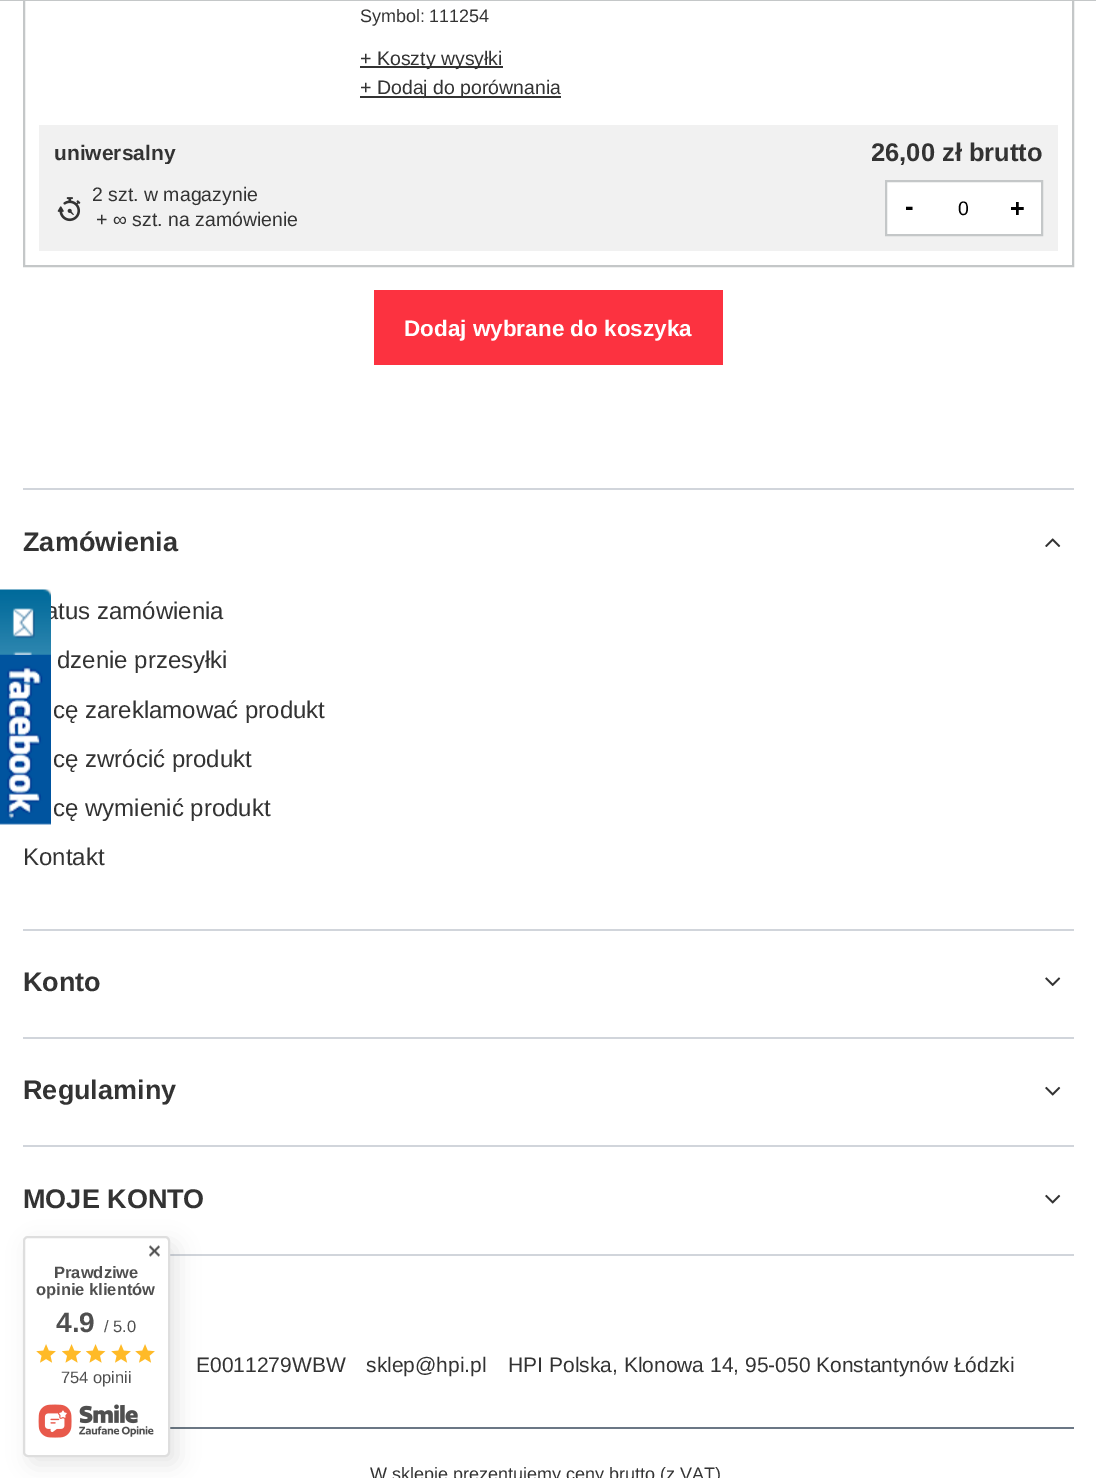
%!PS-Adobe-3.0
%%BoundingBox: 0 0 1096 1478
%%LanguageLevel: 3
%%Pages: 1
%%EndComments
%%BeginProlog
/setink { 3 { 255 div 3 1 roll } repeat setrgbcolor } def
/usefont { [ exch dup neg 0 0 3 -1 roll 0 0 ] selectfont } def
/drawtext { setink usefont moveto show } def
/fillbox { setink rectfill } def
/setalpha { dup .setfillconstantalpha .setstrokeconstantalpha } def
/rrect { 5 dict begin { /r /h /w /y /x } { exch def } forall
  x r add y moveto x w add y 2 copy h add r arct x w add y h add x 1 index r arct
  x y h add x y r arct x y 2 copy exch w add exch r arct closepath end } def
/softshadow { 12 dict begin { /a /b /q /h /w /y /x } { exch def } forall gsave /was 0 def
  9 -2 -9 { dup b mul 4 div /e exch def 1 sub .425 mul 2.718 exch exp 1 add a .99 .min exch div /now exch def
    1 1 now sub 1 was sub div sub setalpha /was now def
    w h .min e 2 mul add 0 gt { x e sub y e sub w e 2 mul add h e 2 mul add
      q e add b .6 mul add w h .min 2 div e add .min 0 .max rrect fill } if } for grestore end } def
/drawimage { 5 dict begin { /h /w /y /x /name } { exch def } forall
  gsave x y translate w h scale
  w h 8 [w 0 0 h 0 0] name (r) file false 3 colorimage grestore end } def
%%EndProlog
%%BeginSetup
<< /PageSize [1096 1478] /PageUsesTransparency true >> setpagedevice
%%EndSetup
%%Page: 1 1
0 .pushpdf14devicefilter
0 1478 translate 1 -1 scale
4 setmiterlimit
0 0 1096 1478 255 255 255 fillbox
196 199 200 setink
2 setlinewidth
24 -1 1049 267 rectstroke
0 0 1096 1 196 199 200 fillbox
(Symbol:) 360 22 /LiberationSans-Regular 18 51 51 51 drawtext
(111254) 429 22 /LiberationSans-Regular 18 51 51 51 drawtext
360 66 143 2 51 51 51 fillbox
(+ Koszty wysyłki) 360 65 /LiberationSans-Regular 19.5 51 51 51 drawtext
360 96 201 2 51 51 51 fillbox
(+ Dodaj do porównania) 360 94 /LiberationSans-Regular 19.5 51 51 51 drawtext
39 125 1019 126 241 241 241 fillbox
gsave
54 143 122 21 rectclip
(uniwersalny) 54 160 /LiberationSans-Bold 21 51 51 51 drawtext
grestore
(26,00 zł brutto) 871 161 /LiberationSans-Bold 25.5 51 51 51 drawtext
(assets/img1.rgb) 57 197 24 25 drawimage
(2 szt. w magazynie) 92 201 /LiberationSans-Regular 19.5 51 51 51 drawtext
(+ ∞ szt. na zamówienie) 96 226 /LiberationSans-Regular 19.5 51 51 51 drawtext
255 255 255 setink
886 181 moveto 1042 181 lineto 1042 235 lineto 886 235 lineto closepath gsave fill grestore
196 199 200 setink
stroke
(-) 905 215 /LiberationSans-Bold 25.5 0 0 0 drawtext
(0) 958 215 /LiberationSans-Regular 19.5 0 0 0 drawtext
(+) 1010 217 /LiberationSans-Bold 25.5 0 0 0 drawtext
374 290 349 75 252 50 64 fillbox
(Dodaj wybrane do koszyka) 404 336 /LiberationSans-Bold 22.5 255 255 255 drawtext
23 488 1051 2 209 213 219 fillbox
23 929 1051 2 209 213 219 fillbox
(Zamówienia) 23 551 /LiberationSans-Bold 27 51 51 51 drawtext
(assets/img2.rgb) 1045 538 16 9 drawimage
(atus zamówienia) 45 619 /LiberationSans-Regular 24 51 51 51 drawtext
(dzenie przesyłki) 57 668 /LiberationSans-Regular 24 51 51 51 drawtext
(cę zareklamować produkt) 53 718 /LiberationSans-Regular 24 51 51 51 drawtext
(cę zwrócić produkt) 53 767 /LiberationSans-Regular 24 51 51 51 drawtext
(cę wymienić produkt) 53 816 /LiberationSans-Regular 24 51 51 51 drawtext
(Kontakt) 23 865 /LiberationSans-Regular 24 51 51 51 drawtext
23 1037 1051 2 209 213 219 fillbox
(Konto) 23 991 /LiberationSans-Bold 27 51 51 51 drawtext
(assets/img3.rgb) 1045 977 16 10 drawimage
23 1145 1051 2 209 213 219 fillbox
(Regulaminy) 23 1099 /LiberationSans-Bold 27 51 51 51 drawtext
(assets/img4.rgb) 1045 1086 16 10 drawimage
170 1254 904 2 209 213 219 fillbox
(MOJE KONTO) 23 1208 /LiberationSans-Bold 27 51 51 51 drawtext
(assets/img4.rgb) 1045 1194 16 10 drawimage
170 1427 904 2 107 119 133 fillbox
(E0011279WBW) 196 1372 /LiberationSans-Regular 21 51 51 51 drawtext
(sklep@hpi.pl) 366 1372 /LiberationSans-Regular 21 51 51 51 drawtext
(HPI Polska, Klonowa 14, 95-050 Konstantynów Łódzki) 508 1372 /LiberationSans-Regular 21 51 51 51 drawtext
(W sklepie prezentujemy ceny brutto \(z VAT\)) 370 1480 /LiberationSans-Regular 18 51 51 51 drawtext
(assets/img5.rgb) 0 589 51 66 drawimage
(assets/img6.rgb) 0 654 51 171 drawimage
0 0 0 setink
30 1244 147 220 5 11 0.1 softshadow
255 255 255 setink
24 1237 145 219 4 rrect gsave fill grestore
222 222 222 setink
stroke
(assets/img7.rgb) 149 1245 11 12 drawimage
(Prawdziwe) 54 1278 /LiberationSans-Bold 16.5 79 79 79 drawtext
(opinie klientów) 36 1295 /LiberationSans-Bold 16.5 79 79 79 drawtext
(4.9) 56 1332 /LiberationSans-Bold 28 79 79 79 drawtext
(/ 5.0) 104 1332 /LiberationSans-Regular 16.5 79 79 79 drawtext
(assets/img8.rgb) 36 1344 20 19 drawimage
(assets/img9.rgb) 62 1344 19 19 drawimage
(assets/img10.rgb) 86 1344 20 19 drawimage
(assets/img8.rgb) 111 1344 20 19 drawimage
(assets/img8.rgb) 135 1344 20 19 drawimage
(754 opinii) 61 1383 /LiberationSans-Regular 16.5 79 79 79 drawtext
(assets/img11.rgb) 38 1404 116 34 drawimage
.poppdf14devicefilter showpage
%%EOF
